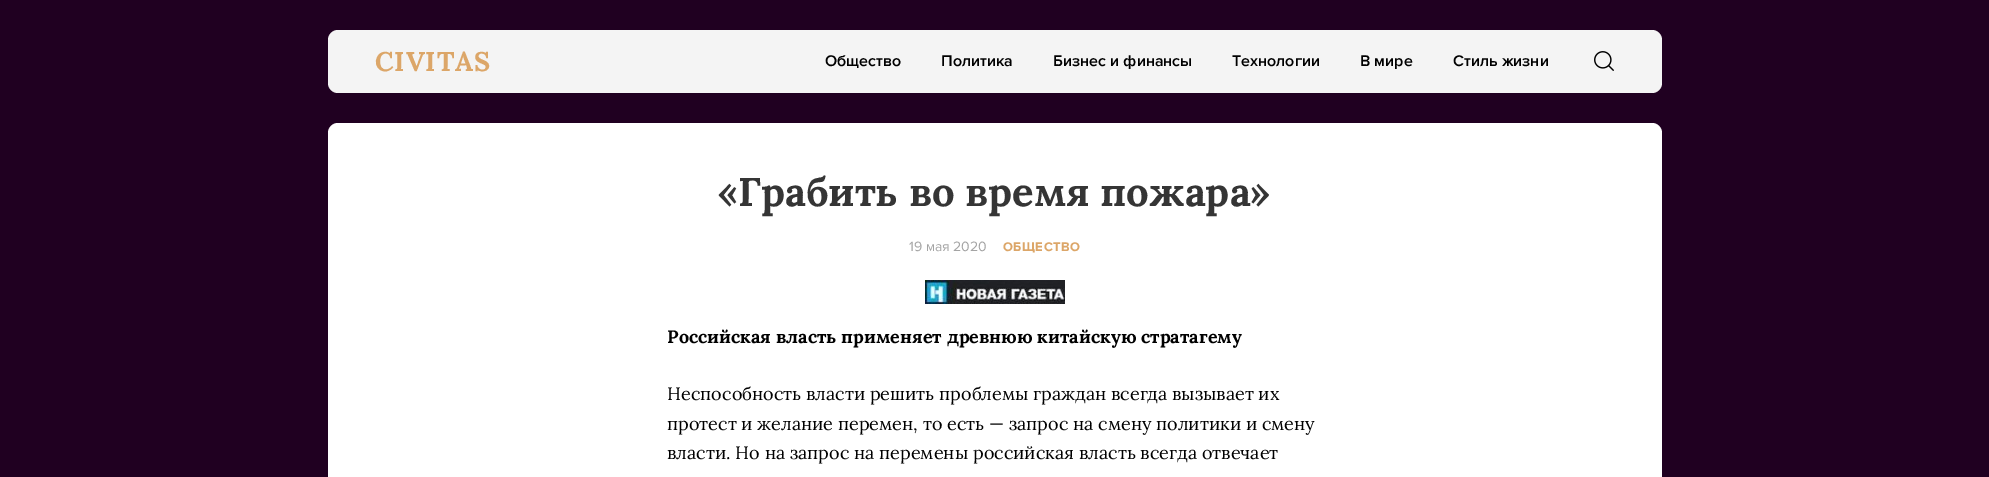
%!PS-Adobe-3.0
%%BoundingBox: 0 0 1989 477
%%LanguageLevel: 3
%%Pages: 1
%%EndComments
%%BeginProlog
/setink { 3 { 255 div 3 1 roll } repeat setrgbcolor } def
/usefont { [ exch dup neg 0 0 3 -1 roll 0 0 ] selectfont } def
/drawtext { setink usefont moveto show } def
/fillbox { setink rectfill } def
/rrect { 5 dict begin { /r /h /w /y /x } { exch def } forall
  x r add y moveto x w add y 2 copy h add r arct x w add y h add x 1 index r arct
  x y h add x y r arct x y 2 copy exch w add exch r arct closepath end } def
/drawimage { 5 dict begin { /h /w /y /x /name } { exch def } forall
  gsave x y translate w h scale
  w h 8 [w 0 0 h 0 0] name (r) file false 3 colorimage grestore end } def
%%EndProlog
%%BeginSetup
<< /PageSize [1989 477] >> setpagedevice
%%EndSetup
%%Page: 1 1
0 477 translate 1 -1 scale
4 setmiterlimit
0 0 1989 477 32 0 33 fillbox
244 244 244 setink
328 30 1334 63 10 rrect fill
/Lora-Bold 27 usefont
220 166 104 setink
375 71 moveto 0.75 0 (CIVITAS) ashow
(Общество) 825 66 /ProximaNova-SemiBold 16 0 0 0 drawtext
(Политика) 941 66 /ProximaNova-SemiBold 16 0 0 0 drawtext
(Бизнес и финансы) 1053 66 /ProximaNova-SemiBold 16 0 0 0 drawtext
(Технологии) 1232 66 /ProximaNova-SemiBold 16 0 0 0 drawtext
(В мире) 1360 66 /ProximaNova-SemiBold 16 0 0 0 drawtext
(Стиль жизни) 1453 66 /ProximaNova-SemiBold 16 0 0 0 drawtext
(assets/img1.rgb) 1594 51 20 20 drawimage
255 255 255 setink
328 123 1334 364 10 rrect fill
(«Грабить во время пожара») 718 206 /Lora-Bold 40 53 53 53 drawtext
(19 мая 2020) 909 251 /ProximaNova-Regular 14 164 164 164 drawtext
/ProximaNova-Bold 13 usefont
220 166 104 setink
1003 251 moveto 0.5 0 (ОБЩЕСТВО) ashow
(assets/img2.rgb) 925 280 140 24 drawimage
(Российская власть применяет древнюю китайскую стратагему) 667 343 /Lora-Bold 18 0 0 0 drawtext
(Неспособность власти решить проблемы граждан всегда вызывает их) 667 400 /Lora-Regular 18 0 0 0 drawtext
(протест и желание перемен, то есть — запрос на смену политики и смену) 667 430 /Lora-Regular 18 0 0 0 drawtext
(власти. Но на запрос на перемены российская власть всегда отвечает) 667 459 /Lora-Regular 18 0 0 0 drawtext
showpage
%%EOF
